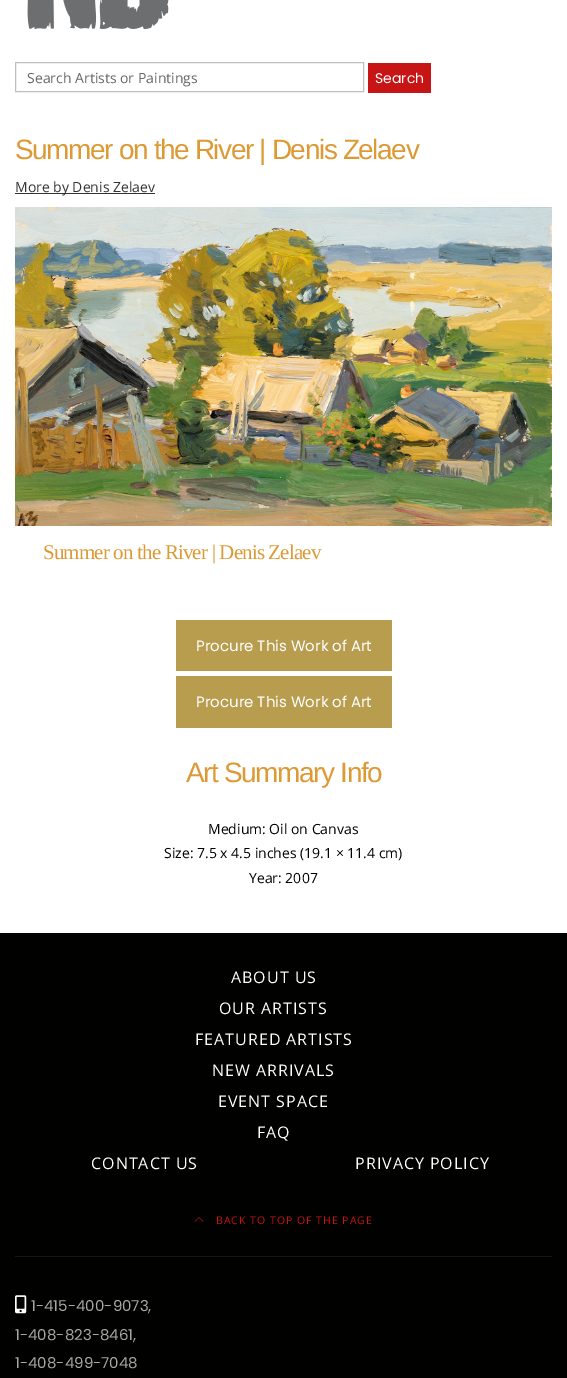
%!PS-Adobe-3.0
%%BoundingBox: 0 0 567 1378
%%LanguageLevel: 3
%%Pages: 1
%%EndComments
%%BeginProlog
/setink { 3 { 255 div 3 1 roll } repeat setrgbcolor } def
/usefont { [ exch dup neg 0 0 3 -1 roll 0 0 ] selectfont } def
/drawtext { setink usefont moveto show } def
/fillbox { setink rectfill } def
/drawimage { 5 dict begin { /h /w /y /x /name } { exch def } forall
  gsave x y translate w h scale
  w h 8 [w 0 0 h 0 0] name (r) file false 3 colorimage grestore end } def
%%EndProlog
%%BeginSetup
<< /PageSize [567 1378] >> setpagedevice
%%EndSetup
%%Page: 1 1
0 1378 translate 1 -1 scale
4 setmiterlimit
0 0 567 1378 255 255 255 fillbox
(assets/img1.rgb) 27 0 142 30 drawimage
191 191 191 setink
15.5 62.5 348 29 rectstroke
(Search Artists or Paintings) 27 83 /OpenSans-Regular 14 102 102 102 drawtext
368 63 63 30 199 20 20 fillbox
(Search) 375 83 /Poppins-Regular 14 255 255 255 drawtext
/LiberationSans-Regular 28 usefont
221 153 51 setink
15 159 moveto -1.4 0 (Summer on the River | Denis Zelaev) ashow
15 193 140 1 51 51 51 fillbox
(More by Denis Zelaev) 15 192 /OpenSans-Regular 14 51 51 51 drawtext
(assets/img2.rgb) 15 207 537 319 drawimage
/LiberationSerif-Regular 21 usefont
221 153 51 setink
43 559 moveto -0.85 0 (Summer on the River | Denis Zelaev) ashow
176 620 216 51 184 157 78 fillbox
(Procure This Work of Art) 196 651 /Poppins-Regular 15 255 255 255 drawtext
176 676 216 52 184 157 78 fillbox
(Procure This Work of Art) 196 707 /Poppins-Regular 15 255 255 255 drawtext
/LiberationSans-Regular 28 usefont
221 153 51 setink
186 782 moveto -1.4 0 (Art Summary Info) ashow
(Medium: Oil on Canvas) 208 834 /OpenSans-Regular 14 0 0 0 drawtext
(Size: 7.5 x 4.5 inches \(19.1 × 11.4 cm\)) 164 858 /OpenSans-Regular 14 0 0 0 drawtext
(Year: 2007) 249 883 /OpenSans-Regular 14 0 0 0 drawtext
0 933 567 445 1 1 0 fillbox
/OpenSans-Regular 16 usefont
255 255 255 setink
231 983 moveto 1 0 (ABOUT US) ashow
219 1014 moveto 1 0 (OUR ARTISTS) ashow
195 1045 moveto 1 0 (FEATURED ARTISTS) ashow
212 1076 moveto 1 0 (NEW ARRIVALS) ashow
218 1107 moveto 1 0 (EVENT SPACE) ashow
257 1138 moveto 1 0 (FAQ) ashow
91 1169 moveto 1 0 (CONTACT US) ashow
355 1169 moveto 1 0 (PRIVACY POLICY) ashow
(assets/img3.rgb) 194 1217 10 5 drawimage
/OpenSans-Regular 10.5 usefont
199 20 20 setink
216 1224 moveto 1 0 (BACK TO TOP OF THE PAGE) ashow
15 1256 537 1 22 22 21 fillbox
(assets/img4.rgb) 15 1295 12 19 drawimage
(1-415-400-9073,) 31 1311 /Poppins-Regular 15 167 167 167 drawtext
(1-408-823-8461,) 15 1340 /Poppins-Regular 15 167 167 167 drawtext
(1-408-499-7048) 15 1368 /Poppins-Regular 15 167 167 167 drawtext
showpage
%%EOF
